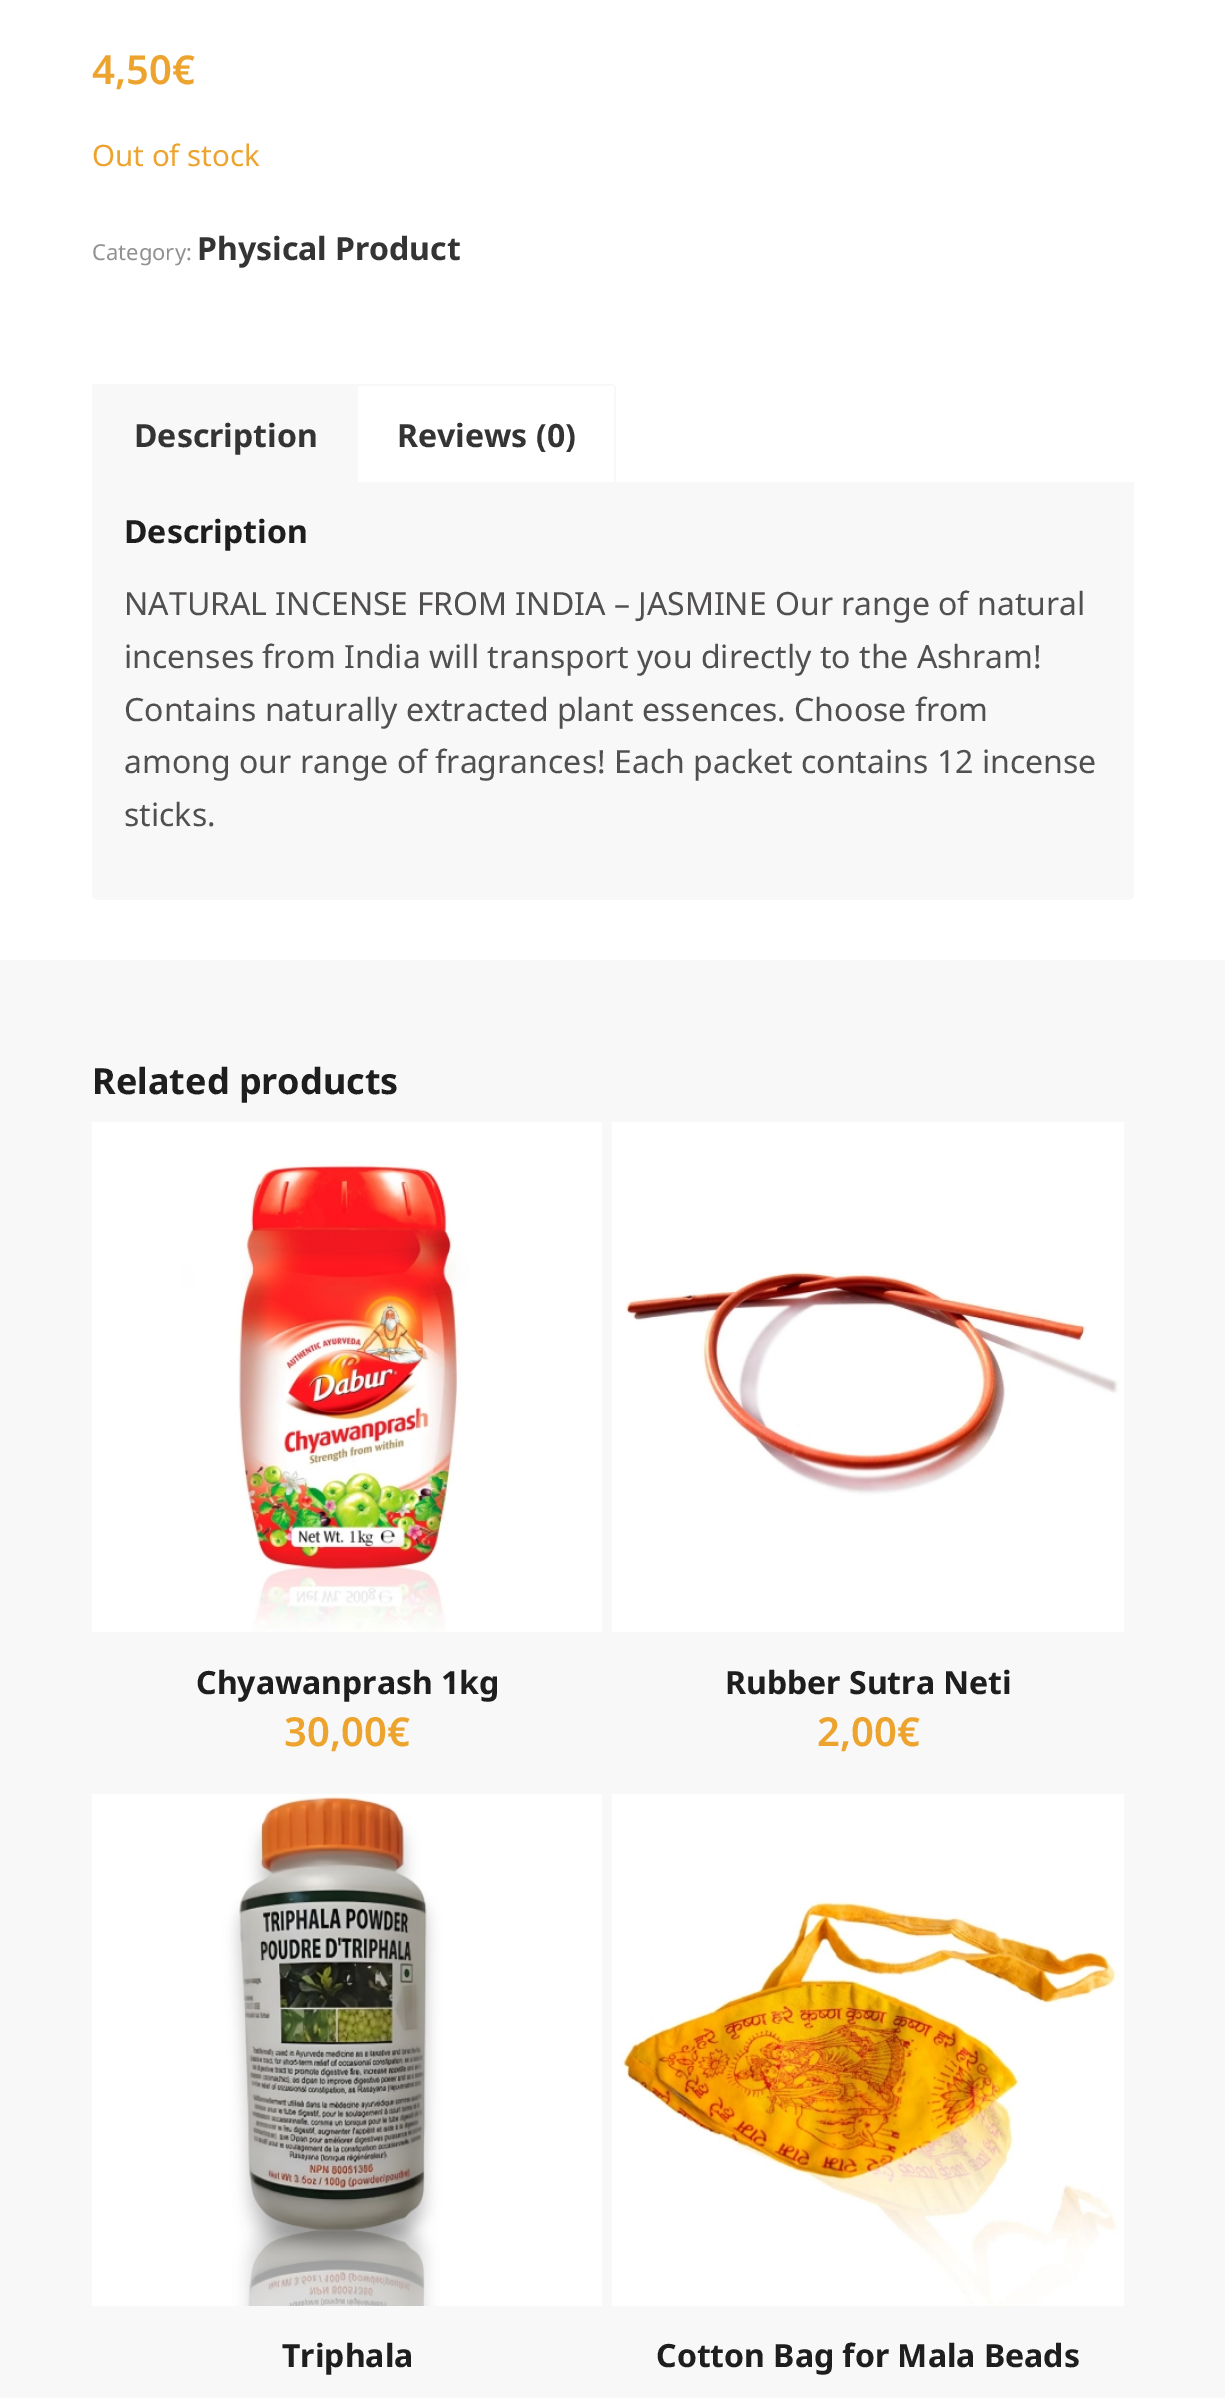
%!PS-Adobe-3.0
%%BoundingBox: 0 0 1225 2398
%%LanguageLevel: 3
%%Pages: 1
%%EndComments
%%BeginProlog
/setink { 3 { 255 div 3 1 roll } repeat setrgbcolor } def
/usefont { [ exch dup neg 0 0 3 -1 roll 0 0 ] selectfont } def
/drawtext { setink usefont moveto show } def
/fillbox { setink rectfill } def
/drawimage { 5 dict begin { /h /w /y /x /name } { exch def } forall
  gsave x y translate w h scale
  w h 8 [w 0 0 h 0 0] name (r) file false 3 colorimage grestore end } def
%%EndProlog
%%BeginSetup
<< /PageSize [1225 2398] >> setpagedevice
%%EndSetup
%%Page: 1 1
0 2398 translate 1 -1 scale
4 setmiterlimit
0 0 1225 2398 255 255 255 fillbox
(4,50€) 92 84 /NotoSans-SemiBold 40 237 164 46 drawtext
(Out of stock) 92 166 /NotoSans-Regular 29.5 237 164 46 drawtext
(Category:) 92 260 /NotoSans-Regular 22 145 145 145 drawtext
(Physical Product) 197 260 /NotoSans-Bold 32 52 52 52 drawtext
356 384 258 2 248 248 248 fillbox
92 384 266 98 248 248 248 fillbox
(Description) 134 447 /NotoSans-Bold 32 52 52 52 drawtext
248 248 248 setink
92 482 moveto 1134 482 lineto 1134 894 lineto 1134 897.5 1131.5 900 1128 900 curveto 98 900 lineto 94.5 900 92 897.5 92 894 curveto closepath fill
614 386 2 98 248 248 248 fillbox
(Reviews \(0\)) 397 447 /NotoSans-Bold 32 52 52 52 drawtext
(Description) 124 543 /NotoSans-Bold 32 30 30 30 drawtext
(NATURAL INCENSE FROM INDIA – JASMINE Our range of natural) 124 615 /NotoSans-Regular 32 81 79 79 drawtext
(incenses from India will transport you directly to the Ashram!) 124 668 /NotoSans-Regular 32 81 79 79 drawtext
(Contains naturally extracted plant essences. Choose from) 124 721 /NotoSans-Regular 32 81 79 79 drawtext
(among our range of fragrances! Each packet contains 12 incense) 124 773 /NotoSans-Regular 32 81 79 79 drawtext
(sticks.) 124 826 /NotoSans-Regular 32 81 79 79 drawtext
0 960 1225 1438 248 248 248 fillbox
(Related products) 92 1094 /NotoSans-Bold 36 30 30 30 drawtext
(assets/img1.rgb) 92 1122 510 510 drawimage
(Chyawanprash 1kg) 196 1694 /NotoSans-Bold 32 30 30 30 drawtext
(30,00€) 284 1746 /NotoSans-SemiBold 40 237 164 46 drawtext
(assets/img2.rgb) 612 1122 512 510 drawimage
(Rubber Sutra Neti) 725 1694 /NotoSans-Bold 32 30 30 30 drawtext
(2,00€) 817 1746 /NotoSans-SemiBold 40 237 164 46 drawtext
(assets/img3.rgb) 92 1794 510 512 drawimage
(Triphala) 282 2367 /NotoSans-Bold 32 30 30 30 drawtext
(assets/img4.rgb) 612 1794 512 512 drawimage
(Cotton Bag for Mala Beads) 656 2367 /NotoSans-Bold 32 30 30 30 drawtext
showpage
%%EOF
